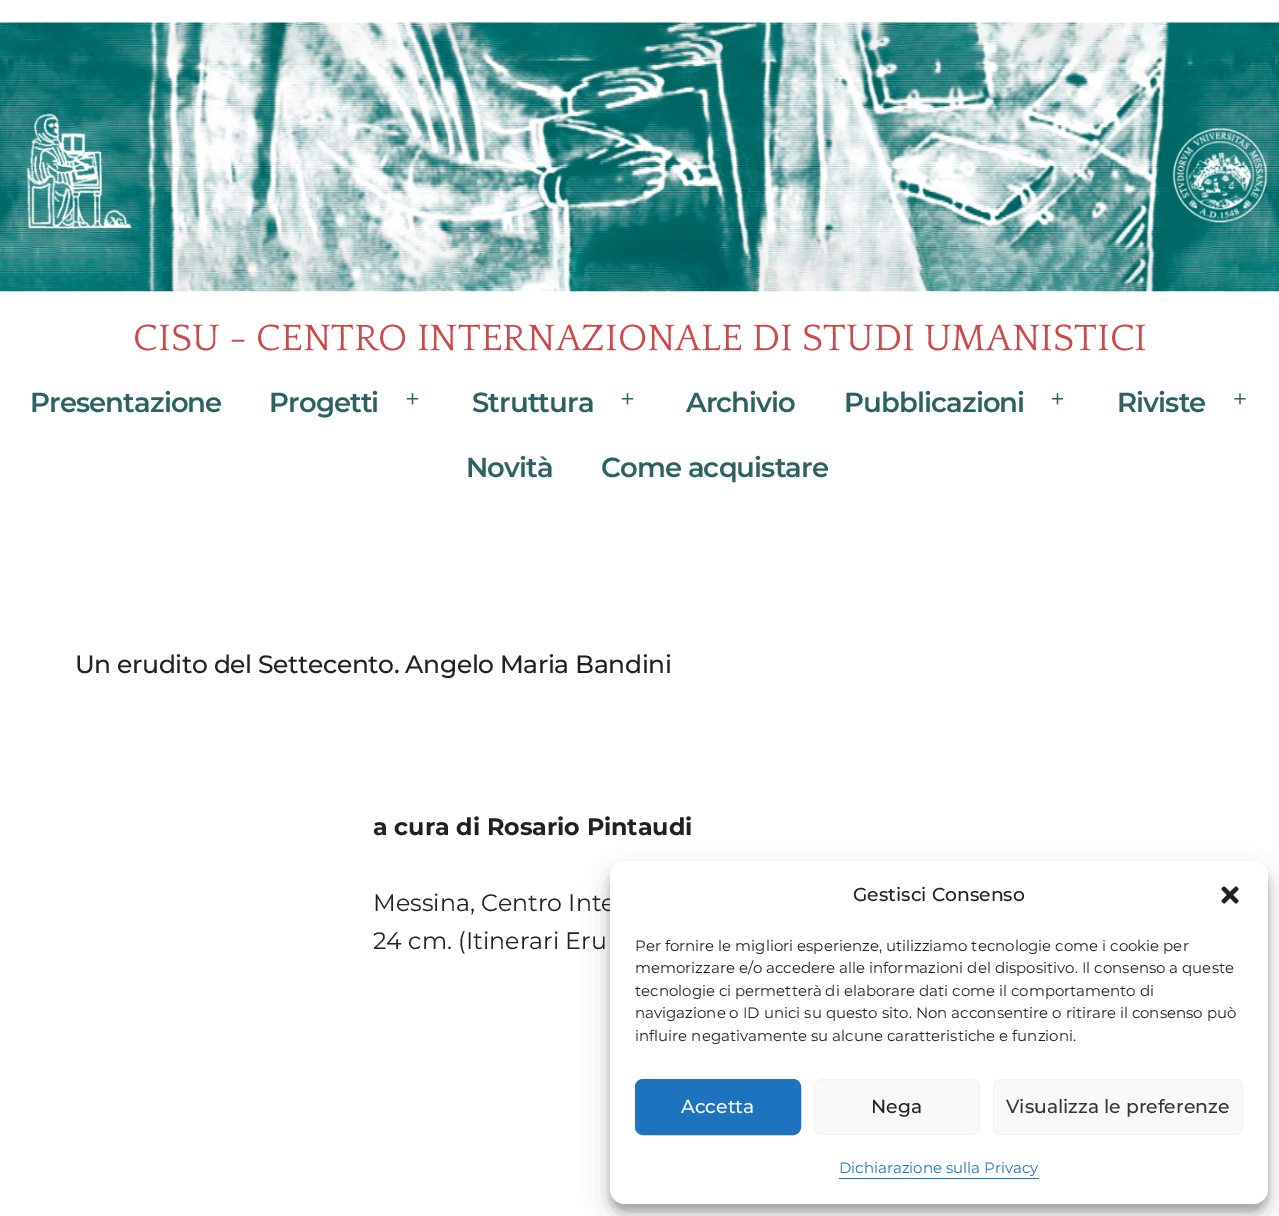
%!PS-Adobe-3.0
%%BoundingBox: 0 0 1279 1216
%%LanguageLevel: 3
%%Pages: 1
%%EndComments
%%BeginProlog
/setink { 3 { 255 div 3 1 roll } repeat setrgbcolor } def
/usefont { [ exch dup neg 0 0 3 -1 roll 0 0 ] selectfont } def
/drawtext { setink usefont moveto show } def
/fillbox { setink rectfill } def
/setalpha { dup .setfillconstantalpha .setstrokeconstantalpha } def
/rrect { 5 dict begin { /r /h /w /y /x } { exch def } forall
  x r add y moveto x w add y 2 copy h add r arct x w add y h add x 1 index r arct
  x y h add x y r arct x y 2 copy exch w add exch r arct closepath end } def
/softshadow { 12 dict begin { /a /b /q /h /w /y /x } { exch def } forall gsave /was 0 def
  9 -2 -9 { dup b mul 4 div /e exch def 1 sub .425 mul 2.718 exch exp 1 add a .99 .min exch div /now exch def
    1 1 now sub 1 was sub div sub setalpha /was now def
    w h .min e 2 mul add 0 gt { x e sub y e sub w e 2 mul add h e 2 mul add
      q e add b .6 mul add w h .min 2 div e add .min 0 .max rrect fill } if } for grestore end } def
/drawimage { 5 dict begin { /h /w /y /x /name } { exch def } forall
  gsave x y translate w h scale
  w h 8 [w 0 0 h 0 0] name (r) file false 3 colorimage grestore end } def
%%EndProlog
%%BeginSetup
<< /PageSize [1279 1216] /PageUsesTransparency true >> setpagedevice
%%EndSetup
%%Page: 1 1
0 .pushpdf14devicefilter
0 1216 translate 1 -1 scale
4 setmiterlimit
0 0 1279 1216 255 255 255 fillbox
(assets/img1.rgb) 0 22 1279 270 drawimage
/Quattrocento-Regular 38.4 usefont
206 72 72 setink
133 350 moveto -0.05 0 (CISU - CENTRO INTERNAZIONALE DI STUDI UMANISTICI) ashow
/Montserrat-SemiBold 27.5 usefont
43 98 97 setink
30 412 moveto -0.9 0 (Presentazione) ashow
269 412 moveto -0.9 0 (Progetti) ashow
(assets/img2.rgb) 406 393 13 12 drawimage
472 412 moveto -0.9 0 (Struttura) ashow
(assets/img2.rgb) 621 393 13 12 drawimage
686 412 moveto -0.9 0 (Archivio) ashow
844 412 moveto -0.9 0 (Pubblicazioni) ashow
(assets/img2.rgb) 1051 393 13 12 drawimage
1117 412 moveto -0.9 0 (Riviste) ashow
(assets/img3.rgb) 1234 393 12 12 drawimage
466 477 moveto -0.9 0 (Novità) ashow
601 477 moveto -0.9 0 (Come acquistare) ashow
/Montserrat-Medium 25 usefont
33 33 33 setink
75 673 moveto -0.4 0 (Un erudito del Settecento. Angelo Maria Bandini) ashow
(a cura di Rosario Pintaudi) 373 835 /Montserrat-Bold 23.75 33 33 33 drawtext
(Messina, Centro Inte) 373 911 /Montserrat-Regular 23.75 33 33 33 drawtext
(24 cm. \(Itinerari Eru) 373 949 /Montserrat-Regular 23.75 33 33 33 drawtext
0 0 0 setink
610 869 658 342 15 4 0.23 softshadow
610 874 658 342 15 12.5 0.19 softshadow
255 255 255 setink
610 861 658 343 15 rrect fill
(Gestisci Consenso) 853 901 /Montserrat-Medium 18.75 33 33 33 drawtext
(assets/img4.rgb) 1221 886 18 18 drawimage
(Per fornire le migliori esperienze, utilizziamo tecnologie come i cookie per) 635 951 /Montserrat-Regular 15 33 33 33 drawtext
(memorizzare e/o accedere alle informazioni del dispositivo. Il consenso a queste) 635 973 /Montserrat-Regular 15 33 33 33 drawtext
(tecnologie ci permetterà di elaborare dati come il comportamento di) 635 996 /Montserrat-Regular 15 33 33 33 drawtext
(navigazione o ID unici su questo sito. Non acconsentire o ritirare il consenso può) 635 1018 /Montserrat-Regular 15 33 33 33 drawtext
(influire negativamente su alcune caratteristiche e funzioni.) 635 1041 /Montserrat-Regular 15 33 33 33 drawtext
30 115 190 setink
635.5 1079.5 165 55 7.5 rrect gsave fill grestore
stroke
(Accetta) 681 1113 /Montserrat-Medium 18.75 255 255 255 drawtext
249 249 249 setink
814.5 1079.5 165 55 7.5 rrect gsave fill grestore
242 242 242 setink
stroke
(Nega) 871 1113 /Montserrat-Medium 18.75 33 33 33 drawtext
249 249 249 setink
993.5 1079.5 249 55 7.5 rrect gsave fill grestore
242 242 242 setink
stroke
(Visualizza le preferenze) 1006 1113 /Montserrat-Medium 18.75 51 51 51 drawtext
(Dichiarazione sulla Privacy) 839 1173 /Montserrat-Regular 15 30 115 190 drawtext
839 1178 200 1 30 115 190 fillbox
.poppdf14devicefilter showpage
%%EOF
